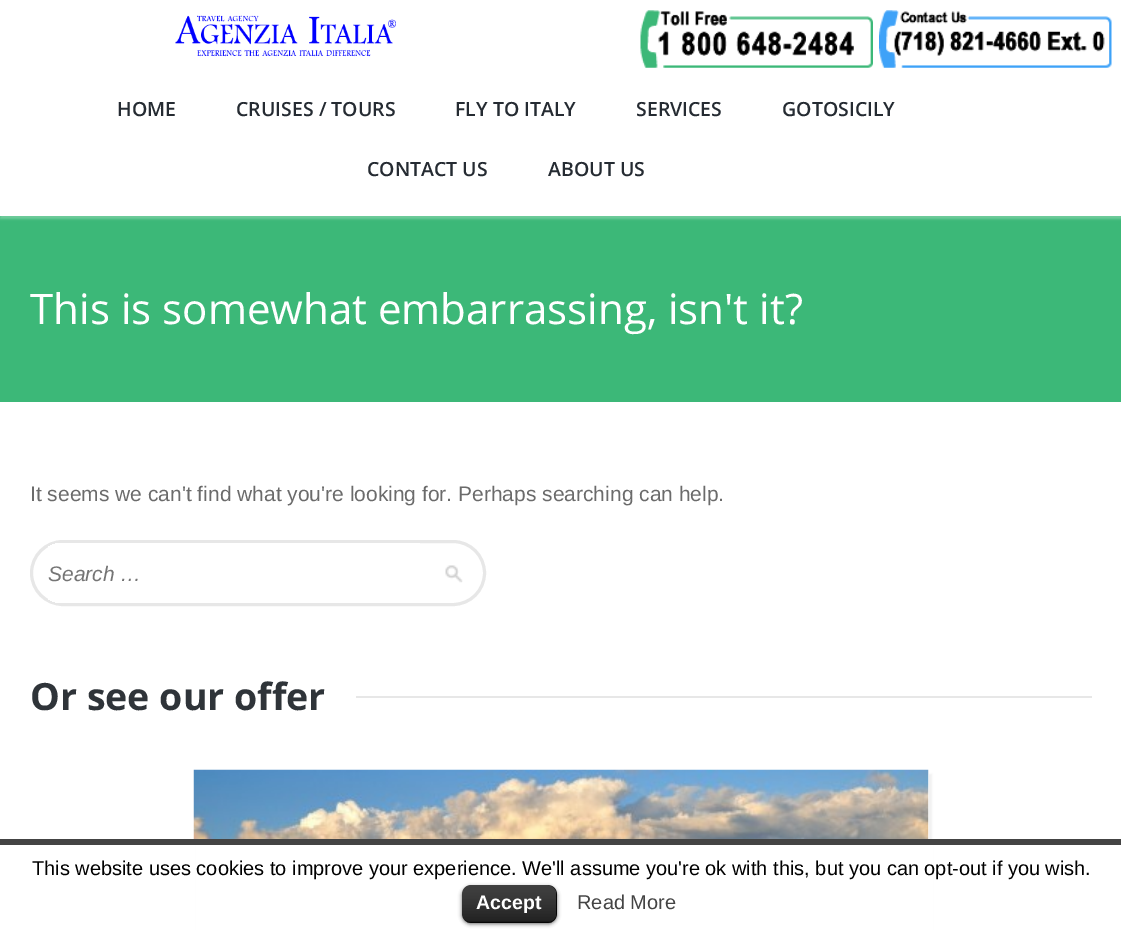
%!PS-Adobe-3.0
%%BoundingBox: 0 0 1121 930
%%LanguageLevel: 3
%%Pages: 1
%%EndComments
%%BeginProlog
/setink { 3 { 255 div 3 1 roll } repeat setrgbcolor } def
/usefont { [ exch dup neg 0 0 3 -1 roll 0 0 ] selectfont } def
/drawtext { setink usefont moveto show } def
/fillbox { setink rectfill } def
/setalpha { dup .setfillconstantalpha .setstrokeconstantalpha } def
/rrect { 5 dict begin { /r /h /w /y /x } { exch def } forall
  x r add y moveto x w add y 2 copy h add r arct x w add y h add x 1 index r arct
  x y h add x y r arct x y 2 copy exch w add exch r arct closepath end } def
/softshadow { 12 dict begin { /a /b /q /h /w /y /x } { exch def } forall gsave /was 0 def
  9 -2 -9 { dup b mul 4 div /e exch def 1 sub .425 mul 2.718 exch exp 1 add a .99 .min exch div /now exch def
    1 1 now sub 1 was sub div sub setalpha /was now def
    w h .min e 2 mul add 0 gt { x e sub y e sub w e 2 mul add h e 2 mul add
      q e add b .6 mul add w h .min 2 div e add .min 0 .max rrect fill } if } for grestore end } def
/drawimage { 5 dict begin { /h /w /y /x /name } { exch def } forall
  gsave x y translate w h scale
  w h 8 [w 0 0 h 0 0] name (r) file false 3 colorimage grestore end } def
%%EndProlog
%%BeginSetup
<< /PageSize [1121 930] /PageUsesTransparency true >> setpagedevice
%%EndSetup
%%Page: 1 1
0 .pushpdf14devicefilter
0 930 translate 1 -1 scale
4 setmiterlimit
0 0 1121 930 255 255 255 fillbox
0 216 1121 186 60 184 120 fillbox
255 255 255 setink
0 3 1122 216 0 1 0.25 softshadow
(assets/img1.rgb) 175 15 221 42 drawimage
(assets/img2.rgb) 640 10 233 58 drawimage
(assets/img3.rgb) 879 10 233 58 drawimage
(HOME) 117 116 /OpenSans-SemiBold 19.5 37 43 50 drawtext
(CRUISES / TOURS) 236 116 /OpenSans-SemiBold 19.5 37 43 50 drawtext
(FLY TO ITALY) 455 116 /OpenSans-SemiBold 19.5 37 43 50 drawtext
(SERVICES) 636 116 /OpenSans-SemiBold 19.5 37 43 50 drawtext
(GOTOSICILY) 782 116 /OpenSans-SemiBold 19.5 37 43 50 drawtext
(CONTACT US) 367 176 /OpenSans-SemiBold 19.5 37 43 50 drawtext
(ABOUT US) 548 176 /OpenSans-SemiBold 19.5 37 43 50 drawtext
(This is somewhat embarrassing, isn't it?) 30 324 /OpenSans-Regular 42 255 255 255 drawtext
(It seems we can't find what you're looking for. Perhaps searching can help.) 30 501 /LiberationSans-Regular 21 107 107 107 drawtext
231 231 231 setink
3 setlinewidth
31.5 541.5 453 63 31.5 rrect stroke
gsave
33 543 450 60 30 rrect clip newpath
48 543 372 60 255 255 255 fillbox
grestore
(Search …) 48 581 /LiberationSans-Italic 21 117 117 117 drawtext
(assets/img4.rgb) 445 565 18 18 drawimage
(Or see our offer) 30 710 /OpenSans-Bold 37.5 47 52 57 drawtext
356 696 736 2 231 231 231 fillbox
0 0 0 setink
197 774 735 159 0 1 0.05 softshadow
928 770 1 69 255 255 255 fillbox
(assets/img5.rgb) 193 769 736 70 drawimage
196 845 737 85 255 255 255 fillbox
0 839 1121 6 68 68 68 fillbox
(This website uses cookies to improve your experience. We'll assume you're ok with this, but you can opt-out if you wish.) 32 875 /LiberationSans-Regular 20 0 0 0 drawtext
462 887 95 37 9 2 0.6 softshadow
462 885 95 38 9 rrect fill
(assets/img6.rgb) 462 885 95 38 drawimage
0.25 setalpha
467 921 85 2 0 0 0 fillbox
1 setalpha
(Accept) 476 909 /LiberationSans-Bold 19.5 255 255 255 drawtext
(Read More) 577 909 /LiberationSans-Regular 20 68 68 68 drawtext
.poppdf14devicefilter showpage
%%EOF
